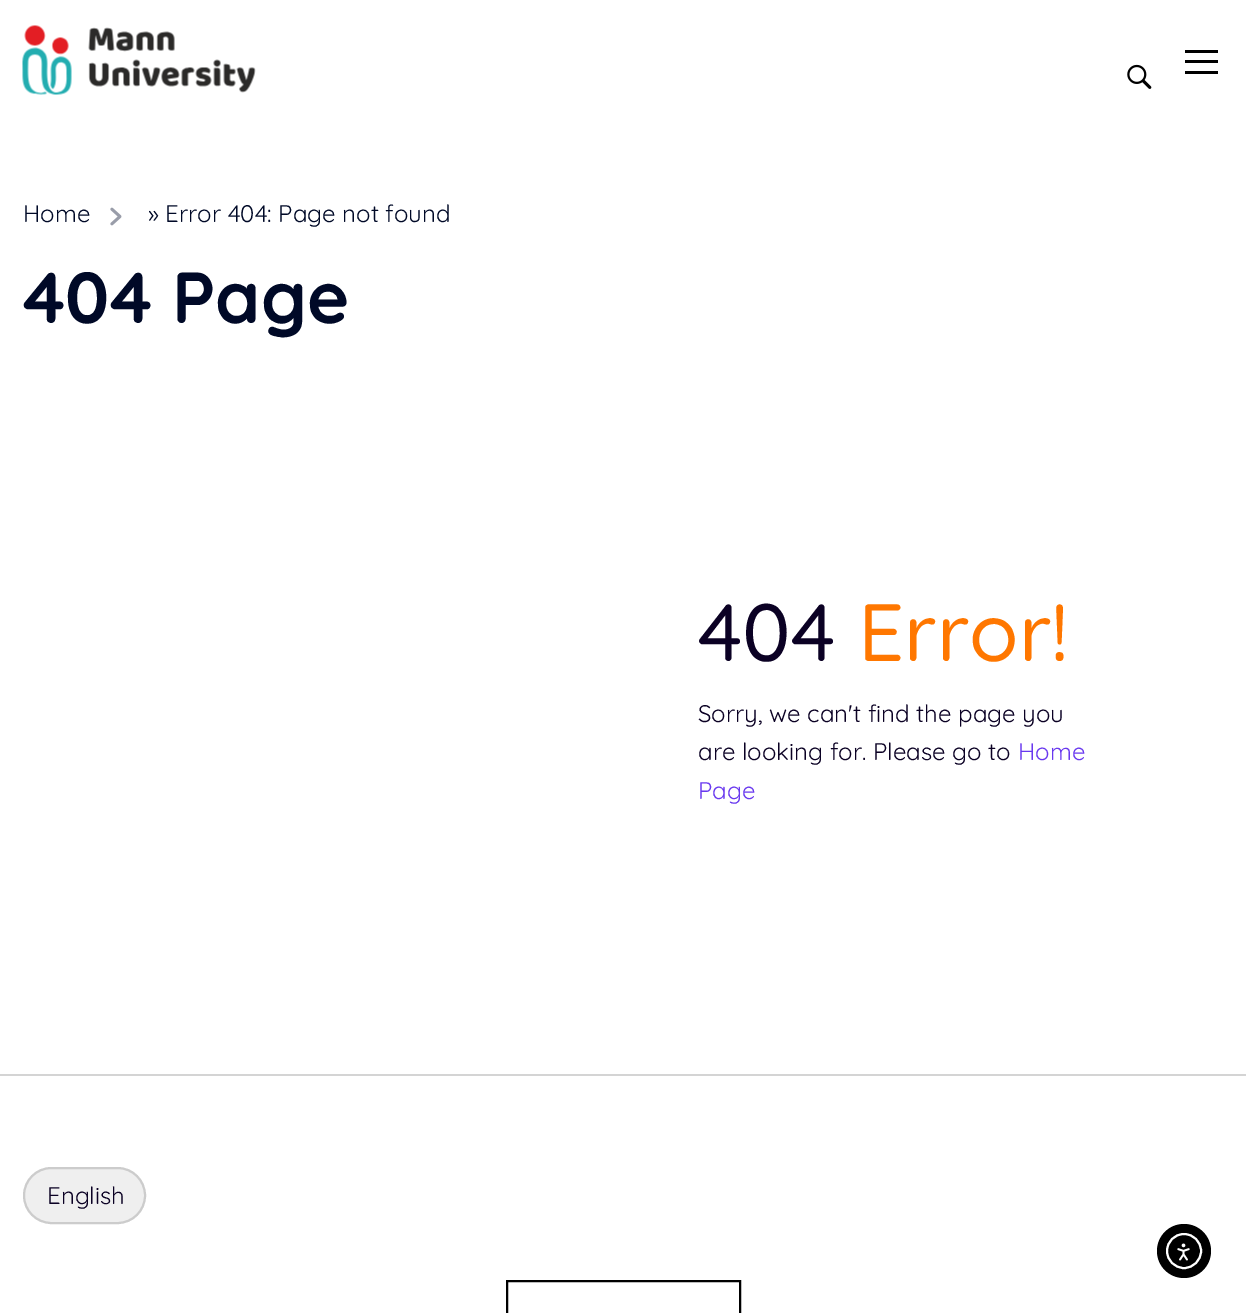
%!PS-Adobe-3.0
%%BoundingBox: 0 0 1246 1313
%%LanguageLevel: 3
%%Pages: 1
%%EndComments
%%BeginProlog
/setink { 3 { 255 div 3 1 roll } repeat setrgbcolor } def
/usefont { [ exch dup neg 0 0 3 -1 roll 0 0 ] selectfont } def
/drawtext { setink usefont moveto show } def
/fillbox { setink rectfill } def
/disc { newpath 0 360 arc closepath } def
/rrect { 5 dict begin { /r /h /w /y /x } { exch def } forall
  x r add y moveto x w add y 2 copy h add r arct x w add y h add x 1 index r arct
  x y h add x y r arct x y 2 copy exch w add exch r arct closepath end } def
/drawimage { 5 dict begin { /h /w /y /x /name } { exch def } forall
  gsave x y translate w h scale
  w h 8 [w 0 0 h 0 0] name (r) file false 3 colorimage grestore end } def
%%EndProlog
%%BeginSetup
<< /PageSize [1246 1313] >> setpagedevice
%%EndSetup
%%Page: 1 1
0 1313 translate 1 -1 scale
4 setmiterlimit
0 0 1246 1313 255 255 255 fillbox
(assets/img1.rgb) 22 25 234 70 drawimage
(assets/img2.rgb) 1127 64 25 25 drawimage
1185 50 33 3 0 0 0 fillbox
1185 60 33 3 0 0 0 fillbox
1185 71 33 3 0 0 0 fillbox
(Home) 23 222 /Quicksand-Regular 24 0 9 39 drawtext
(assets/img3.rgb) 110 207 12 19 drawimage
(» Error 404: Page not found) 148 222 /Quicksand-Regular 24 0 9 39 drawtext
(404 Page) 23 323 /Quicksand-Bold 72 0 9 39 drawtext
(404) 698 661 /Quicksand-Medium 81 11 1 36 drawtext
(Error!) 858 661 /Quicksand-Medium 81 255 119 0 drawtext
(Sorry, we can't find the page you) 698 722 /Quicksand-Regular 24 11 1 36 drawtext
(are looking for. Please go to) 698 760 /Quicksand-Regular 24 11 1 36 drawtext
(Home) 1018 760 /Quicksand-Regular 24 105 56 239 drawtext
(Page) 698 799 /Quicksand-Regular 24 105 56 239 drawtext
0 1074 1246 2 212 212 212 fillbox
0 0 0 setink
2 setlinewidth
507 1281 233 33 rectstroke
239 239 239 setink
24 1168 121 55 27.5 rrect gsave fill grestore
204 204 204 setink
stroke
(English) 47 1204 /Quicksand-Regular 24 11 1 36 drawtext
0 0 0 setink
1184 1251 27 disc fill
255 255 255 setink
1184 1251 17 disc stroke
(assets/img4.rgb) 1177 1243 13 18 drawimage
showpage
%%EOF
